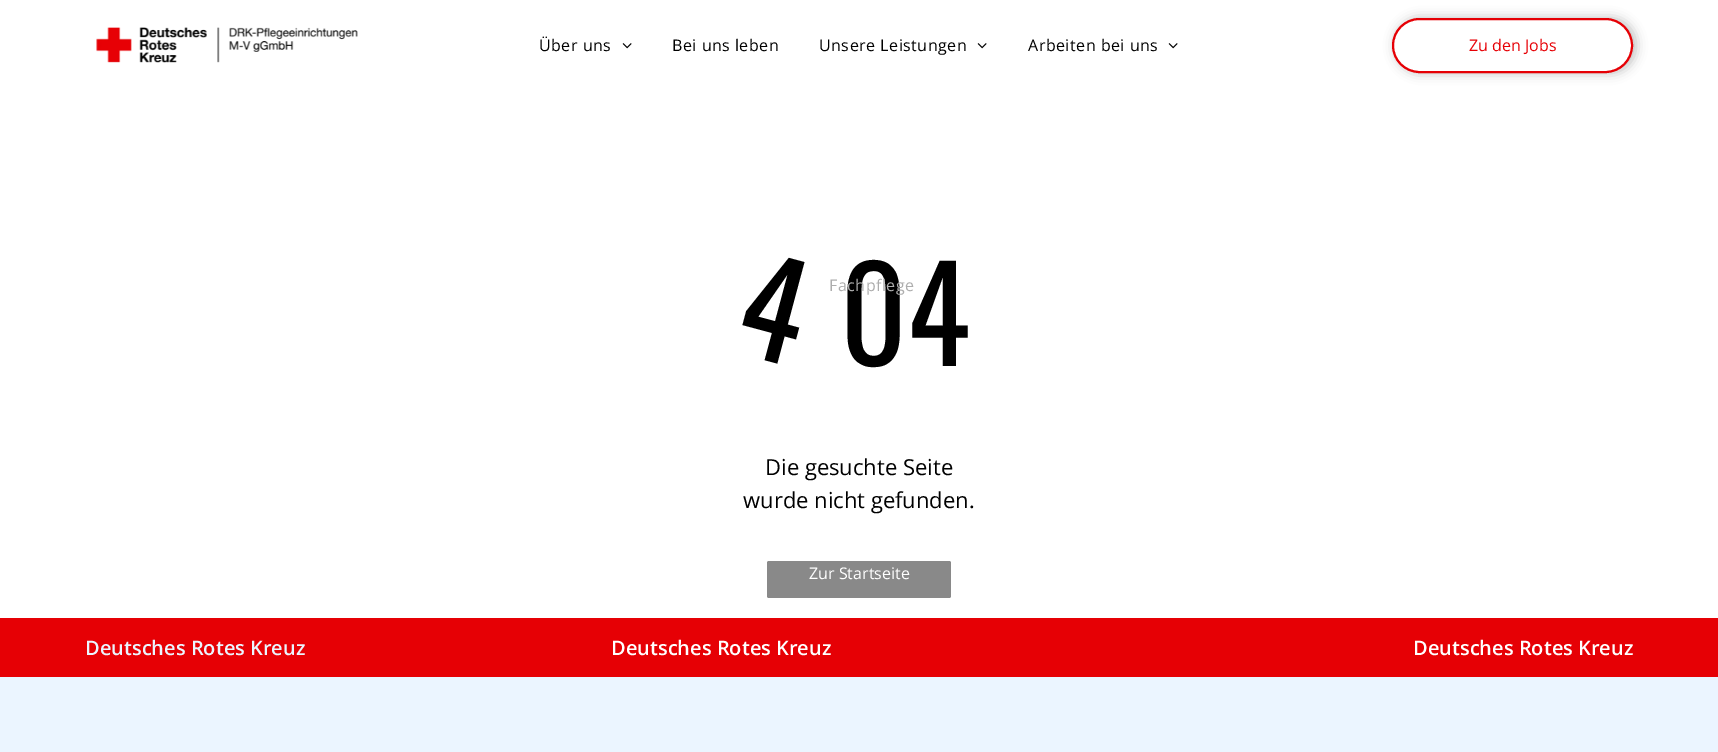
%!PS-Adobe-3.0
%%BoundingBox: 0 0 1718 752
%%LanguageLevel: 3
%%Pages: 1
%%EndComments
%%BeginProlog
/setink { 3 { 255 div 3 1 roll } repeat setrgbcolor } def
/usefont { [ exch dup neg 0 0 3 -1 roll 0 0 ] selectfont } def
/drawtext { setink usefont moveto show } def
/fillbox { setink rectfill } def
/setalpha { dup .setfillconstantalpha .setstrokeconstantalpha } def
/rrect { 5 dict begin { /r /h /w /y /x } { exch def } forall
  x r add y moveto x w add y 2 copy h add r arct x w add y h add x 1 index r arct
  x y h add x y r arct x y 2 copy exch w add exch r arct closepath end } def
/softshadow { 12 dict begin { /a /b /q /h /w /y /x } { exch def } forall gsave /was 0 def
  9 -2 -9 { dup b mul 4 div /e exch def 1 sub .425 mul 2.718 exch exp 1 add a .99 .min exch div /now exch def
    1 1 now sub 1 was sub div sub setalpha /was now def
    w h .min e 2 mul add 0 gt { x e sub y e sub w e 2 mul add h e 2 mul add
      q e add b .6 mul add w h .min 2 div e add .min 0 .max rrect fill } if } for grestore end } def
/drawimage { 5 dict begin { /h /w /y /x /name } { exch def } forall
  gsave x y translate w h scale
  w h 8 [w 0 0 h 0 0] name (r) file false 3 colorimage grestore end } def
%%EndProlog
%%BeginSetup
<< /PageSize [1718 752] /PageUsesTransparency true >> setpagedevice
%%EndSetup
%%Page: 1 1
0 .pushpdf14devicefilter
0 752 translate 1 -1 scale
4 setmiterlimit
0 0 1718 752 255 255 255 fillbox
(assets/img1.rgb) 96 27 262 36 drawimage
/OpenSans-Regular 16 usefont
0 0 0 setink
539 51 moveto 0.5 0 (Über uns) ashow
(assets/img2.rgb) 622 43 10 6 drawimage
672 51 moveto 0.5 0 (Bei uns leben) ashow
819 51 moveto 0.5 0 (Unsere Leistungen) ashow
(assets/img2.rgb) 977 43 10 6 drawimage
(04) 840 366 /Oswald-Regular 130 0 0 0 drawtext
/OpenSans-Regular 16 usefont
173 173 173 setink
829 291 moveto 0.5 0 (Fachpflege) ashow
0 0 0 setink
1028 51 moveto 0.5 0 (Arbeiten bei uns) ashow
(assets/img2.rgb) 1168 43 10 6 drawimage
1395 18 241 55 27.5 5.5 0.25 softshadow
255 255 255 setink
1393 19 239 53 26.5 rrect gsave fill grestore
230 0 5 setink
2 setlinewidth
stroke
(Zu den Jobs) 1469 51 /OpenSans-Regular 16 230 0 5 drawtext
/Oswald-Regular 130 usefont
0 0 0 setink
gsave 730 351 translate 15 rotate 0 0 moveto (4) show grestore
(Die gesuchte Seite) 765 475 /OpenSans-Regular 22 0 0 0 drawtext
(wurde nicht gefunden.) 743 508 /OpenSans-Regular 22 0 0 0 drawtext
137 137 137 setink
767 561 184 37 2 rrect fill
(Zur Startseite) 809 579 /OpenSans-Regular 16 255 255 255 drawtext
0 618 1718 59 230 0 5 fillbox
(Deutsches Rotes Kreuz) 85 655 /OpenSans-SemiBold 20 235 245 255 drawtext
(Deutsches Rotes Kreuz) 611 655 /OpenSans-SemiBold 20 255 255 255 drawtext
(Deutsches Rotes Kreuz) 1413 655 /OpenSans-SemiBold 20 255 255 255 drawtext
0 677 1718 75 235 245 255 fillbox
.poppdf14devicefilter showpage
%%EOF
